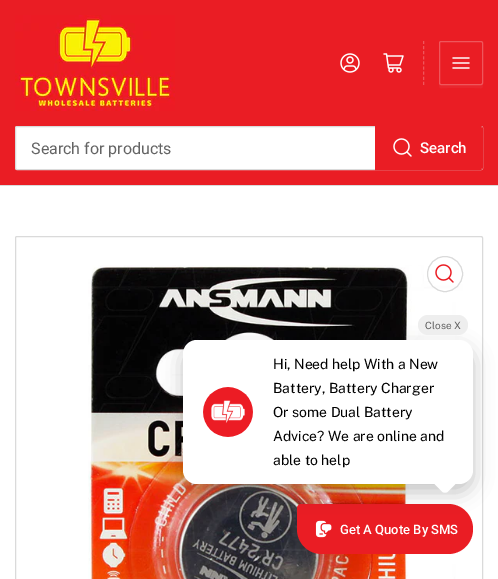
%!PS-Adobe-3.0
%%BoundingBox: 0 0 498 579
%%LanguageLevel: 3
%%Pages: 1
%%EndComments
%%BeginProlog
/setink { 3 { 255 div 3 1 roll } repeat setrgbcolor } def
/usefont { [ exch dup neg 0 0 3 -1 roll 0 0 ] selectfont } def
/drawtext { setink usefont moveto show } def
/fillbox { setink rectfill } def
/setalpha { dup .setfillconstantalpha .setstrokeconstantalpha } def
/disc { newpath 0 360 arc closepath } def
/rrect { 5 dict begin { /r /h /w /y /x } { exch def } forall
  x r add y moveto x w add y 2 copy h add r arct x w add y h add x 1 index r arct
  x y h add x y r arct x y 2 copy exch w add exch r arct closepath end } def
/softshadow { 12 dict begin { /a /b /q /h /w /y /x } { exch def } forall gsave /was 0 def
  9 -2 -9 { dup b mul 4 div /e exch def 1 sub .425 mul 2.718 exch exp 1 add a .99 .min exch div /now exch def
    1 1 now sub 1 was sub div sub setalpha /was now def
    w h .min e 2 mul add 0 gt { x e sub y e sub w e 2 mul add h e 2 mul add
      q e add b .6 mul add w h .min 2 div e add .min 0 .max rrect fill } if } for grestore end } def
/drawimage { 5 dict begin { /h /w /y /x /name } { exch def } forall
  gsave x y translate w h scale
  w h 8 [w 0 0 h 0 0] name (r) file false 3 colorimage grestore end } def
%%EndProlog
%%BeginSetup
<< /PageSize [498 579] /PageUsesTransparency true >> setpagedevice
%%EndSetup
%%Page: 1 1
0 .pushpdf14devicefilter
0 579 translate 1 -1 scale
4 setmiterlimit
0 0 498 579 255 255 255 fillbox
0 185 498 1 218 218 218 fillbox
0 0 498 185 234 29 36 fillbox
(assets/img1.rgb) 15 15 160 96 drawimage
(assets/img2.rgb) 340 53 20 20 drawimage
(assets/img3.rgb) 383 53 21 20 drawimage
239 86 91 setink
[3 2.12] 0 setdash
423.5 41 moveto 423.5 85 lineto stroke
233 38 45 setink
439 83 moveto 439 90 440 88 448 88 curveto 474 88 lineto 482 88 483 90 483 83 curveto 483 84 482 85 481 85 curveto 441 85 lineto 440 85 439 84 439 83 curveto closepath fill
239 86 91 setink
[] 0 setdash
439.5 41.5 43 43 1.5 rrect stroke
(assets/img4.rgb) 452 57 18 12 drawimage
255 255 255 setink
15.5 126.5 467 43 1.5 rrect gsave fill grestore
218 218 218 setink
stroke
(Search for products) 31 154 /Roboto-Regular 16 100 100 100 drawtext
234 29 36 setink
375.5 126.5 moveto 480 126.5 lineto 481.5 126.5 482.5 127.5 482.5 129 curveto 482.5 167 lineto 482.5 168.5 481.5 169.5 480 169.5 curveto 375.5 169.5 lineto closepath stroke
376 127 moveto 480 127 lineto 481 127 482 128 482 129 curveto 482 167 lineto 482 168 481 169 480 169 curveto 376 169 lineto closepath fill
(assets/img5.rgb) 393 138 19 19 drawimage
(Search) 420 153 /Roboto-Medium 15 255 255 255 drawtext
218 218 218 setink
15.5 236.5 467 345 1.5 rrect stroke
(assets/img7.rgb) 88 265 375 314 drawimage
445 274 17.5 disc stroke
(assets/img6.rgb) 435 264 19 19 drawimage
234 29 36 setink
301 504 moveto 448 504 lineto 462 504 473 515 473 529 curveto 473 543 462 554 448 554 curveto 322 554 lineto 308 554 297 543 297 529 curveto 297 508 lineto 297 506 299 504 301 504 curveto closepath fill
(assets/img9.rgb) 315 520 17 18 drawimage
0 0 0 setink
183 348 290 144 14 10 0.24 softshadow
255 255 255 setink
183 340 290 144 14 rrect fill
238 238 238 setink
418 315 50 20 10 rrect fill
(Close X) 425 329 /PublicSans-Thin 10 93 93 93 drawtext
(assets/img8.rgb) 203 387 50 50 drawimage
(Hi, Need help With a New) 273 369 /PublicSans-Thin 14 0 0 0 drawtext
(Battery, Battery Charger) 273 393 /PublicSans-Thin 14 0 0 0 drawtext
(Or some Dual Battery) 273 417 /PublicSans-Thin 14 0 0 0 drawtext
(Advice? We are online and) 273 441 /PublicSans-Thin 14 0 0 0 drawtext
(able to help) 273 465 /PublicSans-Thin 14 0 0 0 drawtext
255 255 255 setink
448 468.5 moveto 456.5 477 lineto 458 478.5 458 481.5 456.5 483 curveto 448 491.5 lineto 446.5 493 443.5 493 442 491.5 curveto 433.5 483 lineto 432 481.5 432 478.5 433.5 477 curveto 442 468.5 lineto 443.5 467 446.5 467 448 468.5 curveto closepath fill
(Get A Quote By SMS) 340 534 /Roboto-Medium 13 255 255 255 drawtext
.poppdf14devicefilter showpage
%%EOF
